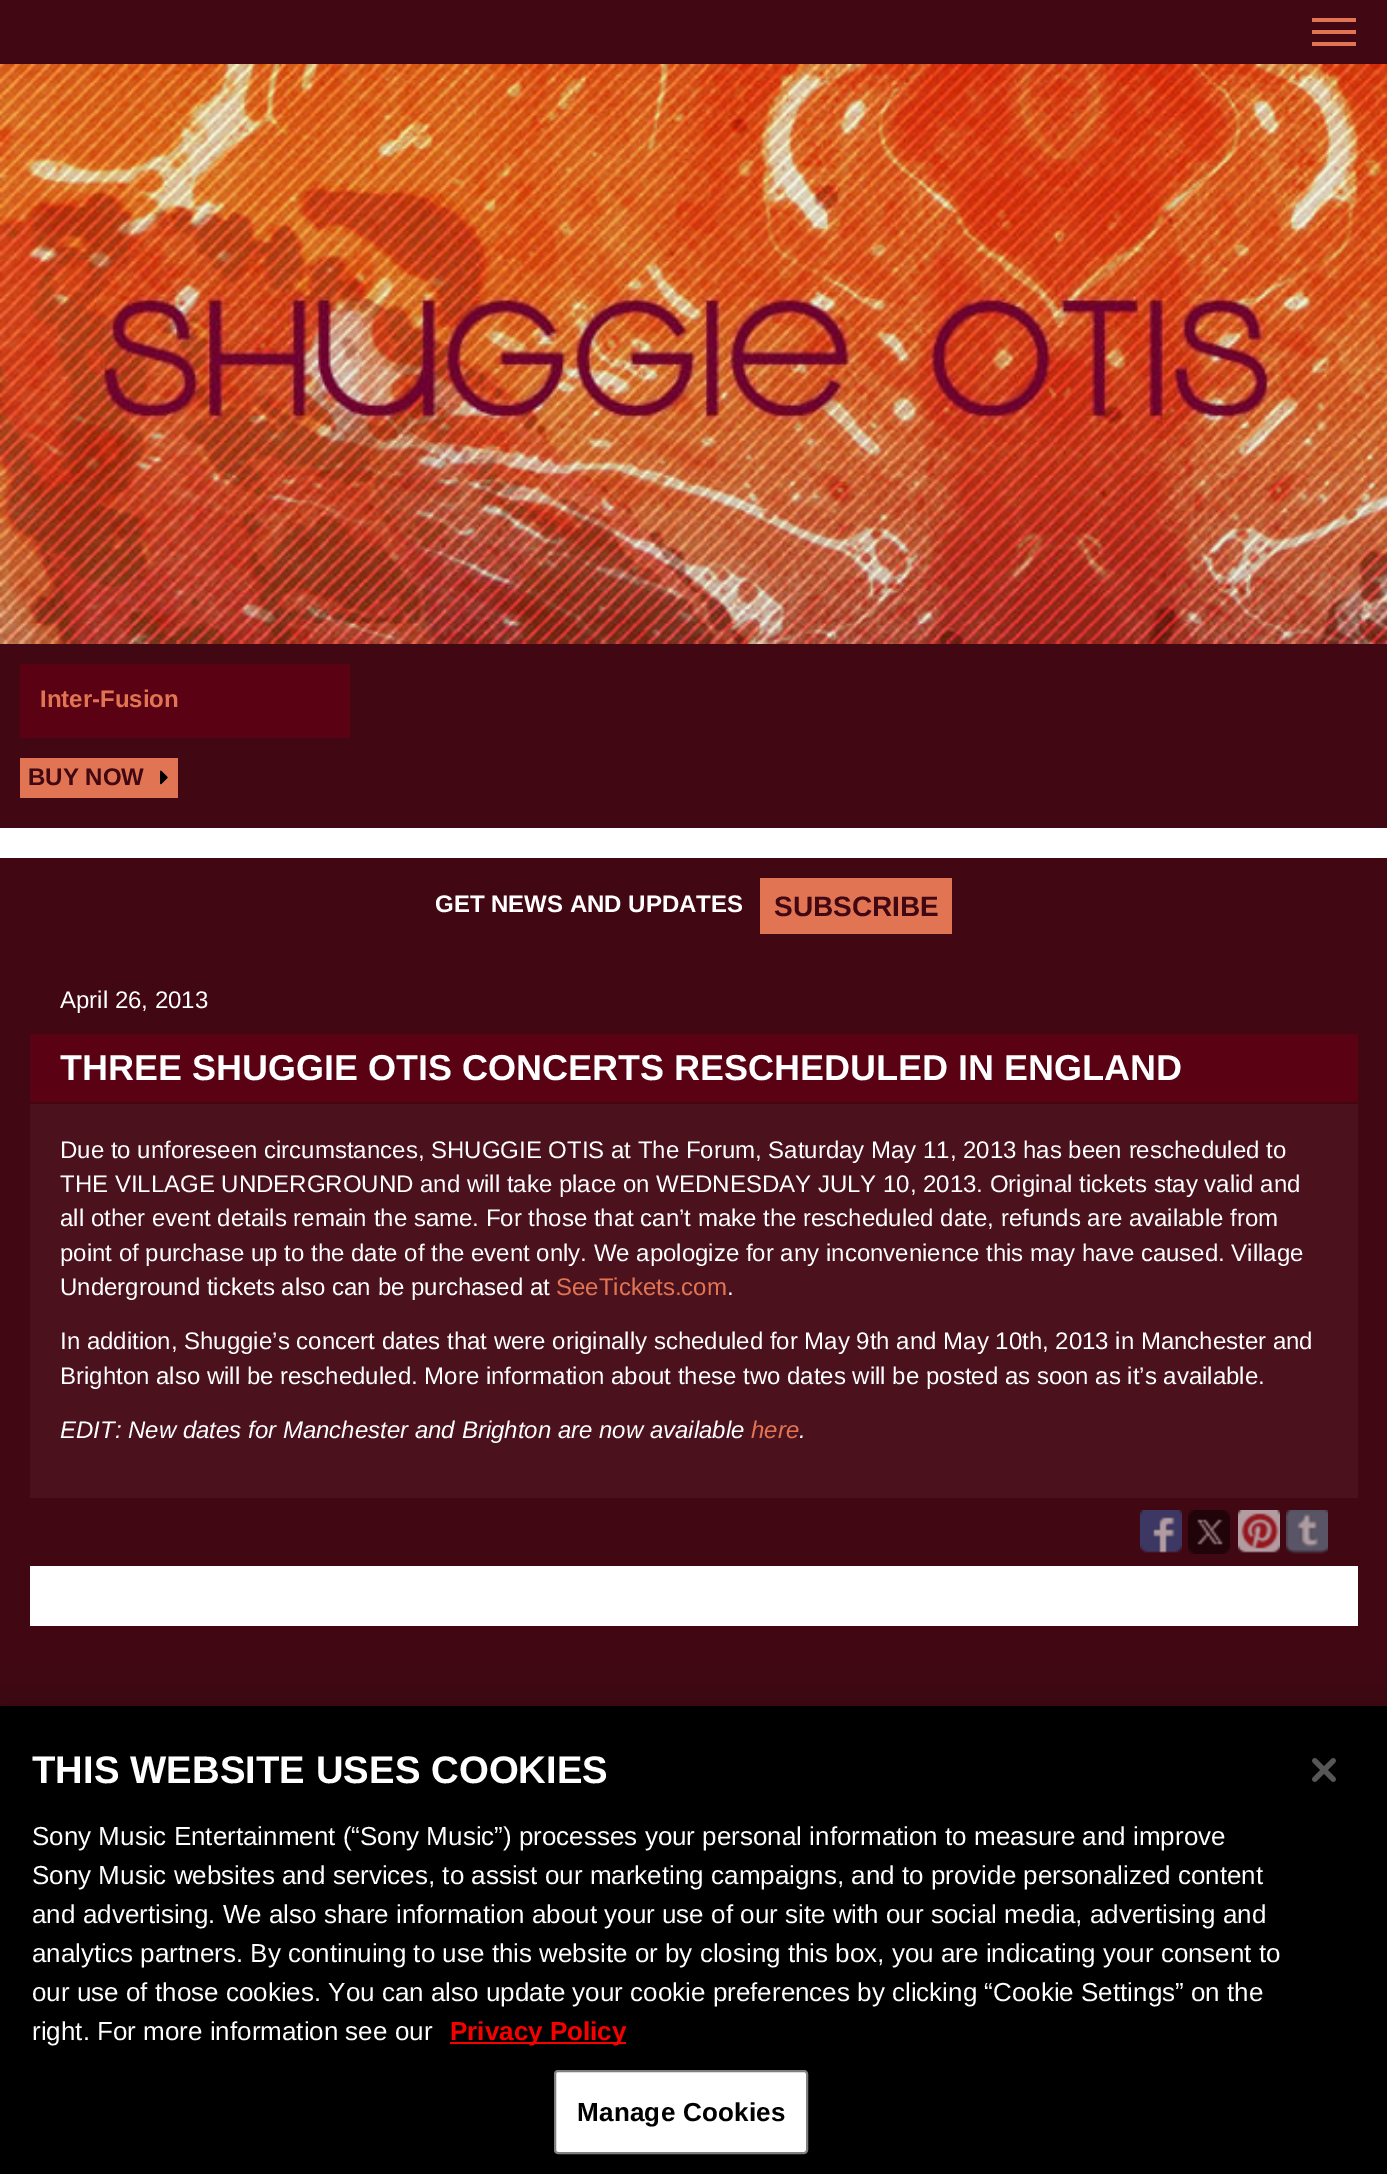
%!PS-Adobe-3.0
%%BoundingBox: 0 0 1387 2174
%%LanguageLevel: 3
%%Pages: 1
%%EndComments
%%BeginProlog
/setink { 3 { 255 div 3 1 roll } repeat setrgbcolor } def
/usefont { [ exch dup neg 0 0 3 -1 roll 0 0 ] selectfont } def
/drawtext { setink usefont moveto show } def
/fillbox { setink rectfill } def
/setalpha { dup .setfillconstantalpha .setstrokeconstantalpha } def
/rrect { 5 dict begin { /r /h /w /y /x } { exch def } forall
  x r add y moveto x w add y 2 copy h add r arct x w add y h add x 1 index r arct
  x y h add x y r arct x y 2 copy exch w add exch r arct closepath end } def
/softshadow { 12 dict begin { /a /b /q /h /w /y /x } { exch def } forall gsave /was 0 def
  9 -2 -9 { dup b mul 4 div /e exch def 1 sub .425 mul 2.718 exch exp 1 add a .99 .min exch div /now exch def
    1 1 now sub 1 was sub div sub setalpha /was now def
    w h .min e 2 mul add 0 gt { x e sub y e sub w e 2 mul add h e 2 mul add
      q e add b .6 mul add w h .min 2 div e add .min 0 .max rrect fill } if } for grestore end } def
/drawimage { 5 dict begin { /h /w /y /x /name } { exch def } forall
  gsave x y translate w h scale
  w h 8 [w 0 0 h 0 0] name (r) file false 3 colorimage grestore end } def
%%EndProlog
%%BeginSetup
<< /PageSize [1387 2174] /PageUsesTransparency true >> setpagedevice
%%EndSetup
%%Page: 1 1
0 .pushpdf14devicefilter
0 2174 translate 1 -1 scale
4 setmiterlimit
0 0 1387 2174 255 255 255 fillbox
0 0 1387 64 65 8 19 fillbox
1312 18 44 4 225 116 83 fillbox
1312 30 44 4 225 116 83 fillbox
1312 42 44 4 225 116 83 fillbox
(assets/img1.rgb) 0 64 1387 580 drawimage
0 644 1387 184 65 8 19 fillbox
20 664 330 74 90 2 19 fillbox
(Inter-Fusion) 40 707 /LiberationSans-Bold 24 225 116 83 drawtext
20 758 158 40 225 116 83 fillbox
(BUY NOW) 28 785 /LiberationSans-Bold 24 65 8 19 drawtext
(assets/img2.rgb) 160 770 8 15 drawimage
0 858 1387 848 65 8 19 fillbox
(GET NEWS AND UPDATES) 435 912 /LiberationSans-Bold 24 255 255 255 drawtext
760 878 192 56 225 116 83 fillbox
(SUBSCRIBE) 774 916 /LiberationSans-Bold 28 65 8 19 drawtext
(April 26, 2013) 60 1008 /LiberationSans-Regular 24 255 255 255 drawtext
30 1034 1328 68 90 2 19 fillbox
(THREE SHUGGIE OTIS CONCERTS RESCHEDULED IN ENGLAND) 60 1080 /LiberationSans-Bold 36 255 255 255 drawtext
30 1104 1328 394 75 18 29 fillbox
(Due to unforeseen circumstances, SHUGGIE OTIS at The Forum, Saturday May 11, 2013 has been rescheduled to) 60 1158 /LiberationSans-Regular 24 255 255 255 drawtext
(THE VILLAGE UNDERGROUND and will take place on WEDNESDAY JULY 10, 2013. Original tickets stay valid and) 60 1192 /LiberationSans-Regular 24 255 255 255 drawtext
(all other event details remain the same. For those that can’t make the rescheduled date, refunds are available from) 60 1226 /LiberationSans-Regular 24 255 255 255 drawtext
(point of purchase up to the date of the event only. We apologize for any inconvenience this may have caused. Village) 60 1261 /LiberationSans-Regular 24 255 255 255 drawtext
(Underground tickets also can be purchased at) 60 1295 /LiberationSans-Regular 24 255 255 255 drawtext
(SeeTickets.com) 556 1295 /LiberationSans-Regular 24 225 116 83 drawtext
(.) 727 1295 /LiberationSans-Regular 24 255 255 255 drawtext
(In addition, Shuggie’s concert dates that were originally scheduled for May 9th and May 10th, 2013 in Manchester and) 60 1349 /LiberationSans-Regular 24 255 255 255 drawtext
(Brighton also will be rescheduled. More information about these two dates will be posted as soon as it’s available.) 60 1384 /LiberationSans-Regular 24 255 255 255 drawtext
(EDIT: New dates for Manchester and Brighton are now available) 60 1438 /LiberationSans-Italic 24 255 255 255 drawtext
(here) 751 1438 /LiberationSans-Italic 24 225 116 83 drawtext
(.) 799 1438 /LiberationSans-Italic 24 255 255 255 drawtext
(assets/img3.rgb) 1140 1510 42 43 drawimage
(assets/img4.rgb) 1188 1510 42 44 drawimage
(assets/img5.rgb) 1238 1510 42 43 drawimage
(assets/img6.rgb) 1286 1510 42 44 drawimage
30 1566 1328 60 255 255 255 fillbox
0 0 0 setink
0 1706 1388 468 0 18 0.2 softshadow
0 1706 1387 468 0 0 0 fillbox
(THIS WEBSITE USES COOKIES) 32 1783 /LiberationSans-Bold 38.4 255 255 255 drawtext
(Sony Music Entertainment \(“Sony Music”\) processes your personal information to measure and improve) 32 1845 /LiberationSans-Regular 26 255 255 255 drawtext
(Sony Music websites and services, to assist our marketing campaigns, and to provide personalized content) 32 1884 /LiberationSans-Regular 26 255 255 255 drawtext
(and advertising. We also share information about your use of our site with our social media, advertising and) 32 1923 /LiberationSans-Regular 26 255 255 255 drawtext
(analytics partners. By continuing to use this website or by closing this box, you are indicating your consent to) 32 1962 /LiberationSans-Regular 26 255 255 255 drawtext
(our use of those cookies. You can also update your cookie preferences by clicking “Cookie Settings” on the) 32 2001 /LiberationSans-Regular 26 255 255 255 drawtext
(right. For more information see our) 32 2040 /LiberationSans-Regular 26 255 255 255 drawtext
450 2042 176 2 249 0 0 fillbox
(Privacy Policy) 450 2040 /LiberationSans-Bold 26 249 0 0 drawtext
255 255 255 setink
555 2071 252 82 3 rrect gsave fill grestore
128 128 128 setink
2 setlinewidth
stroke
0 0 0 setink
577 2121 moveto 0.25 0 (Manage Cookies) ashow
(assets/img7.rgb) 1312 1758 24 24 drawimage
.poppdf14devicefilter showpage
%%EOF
